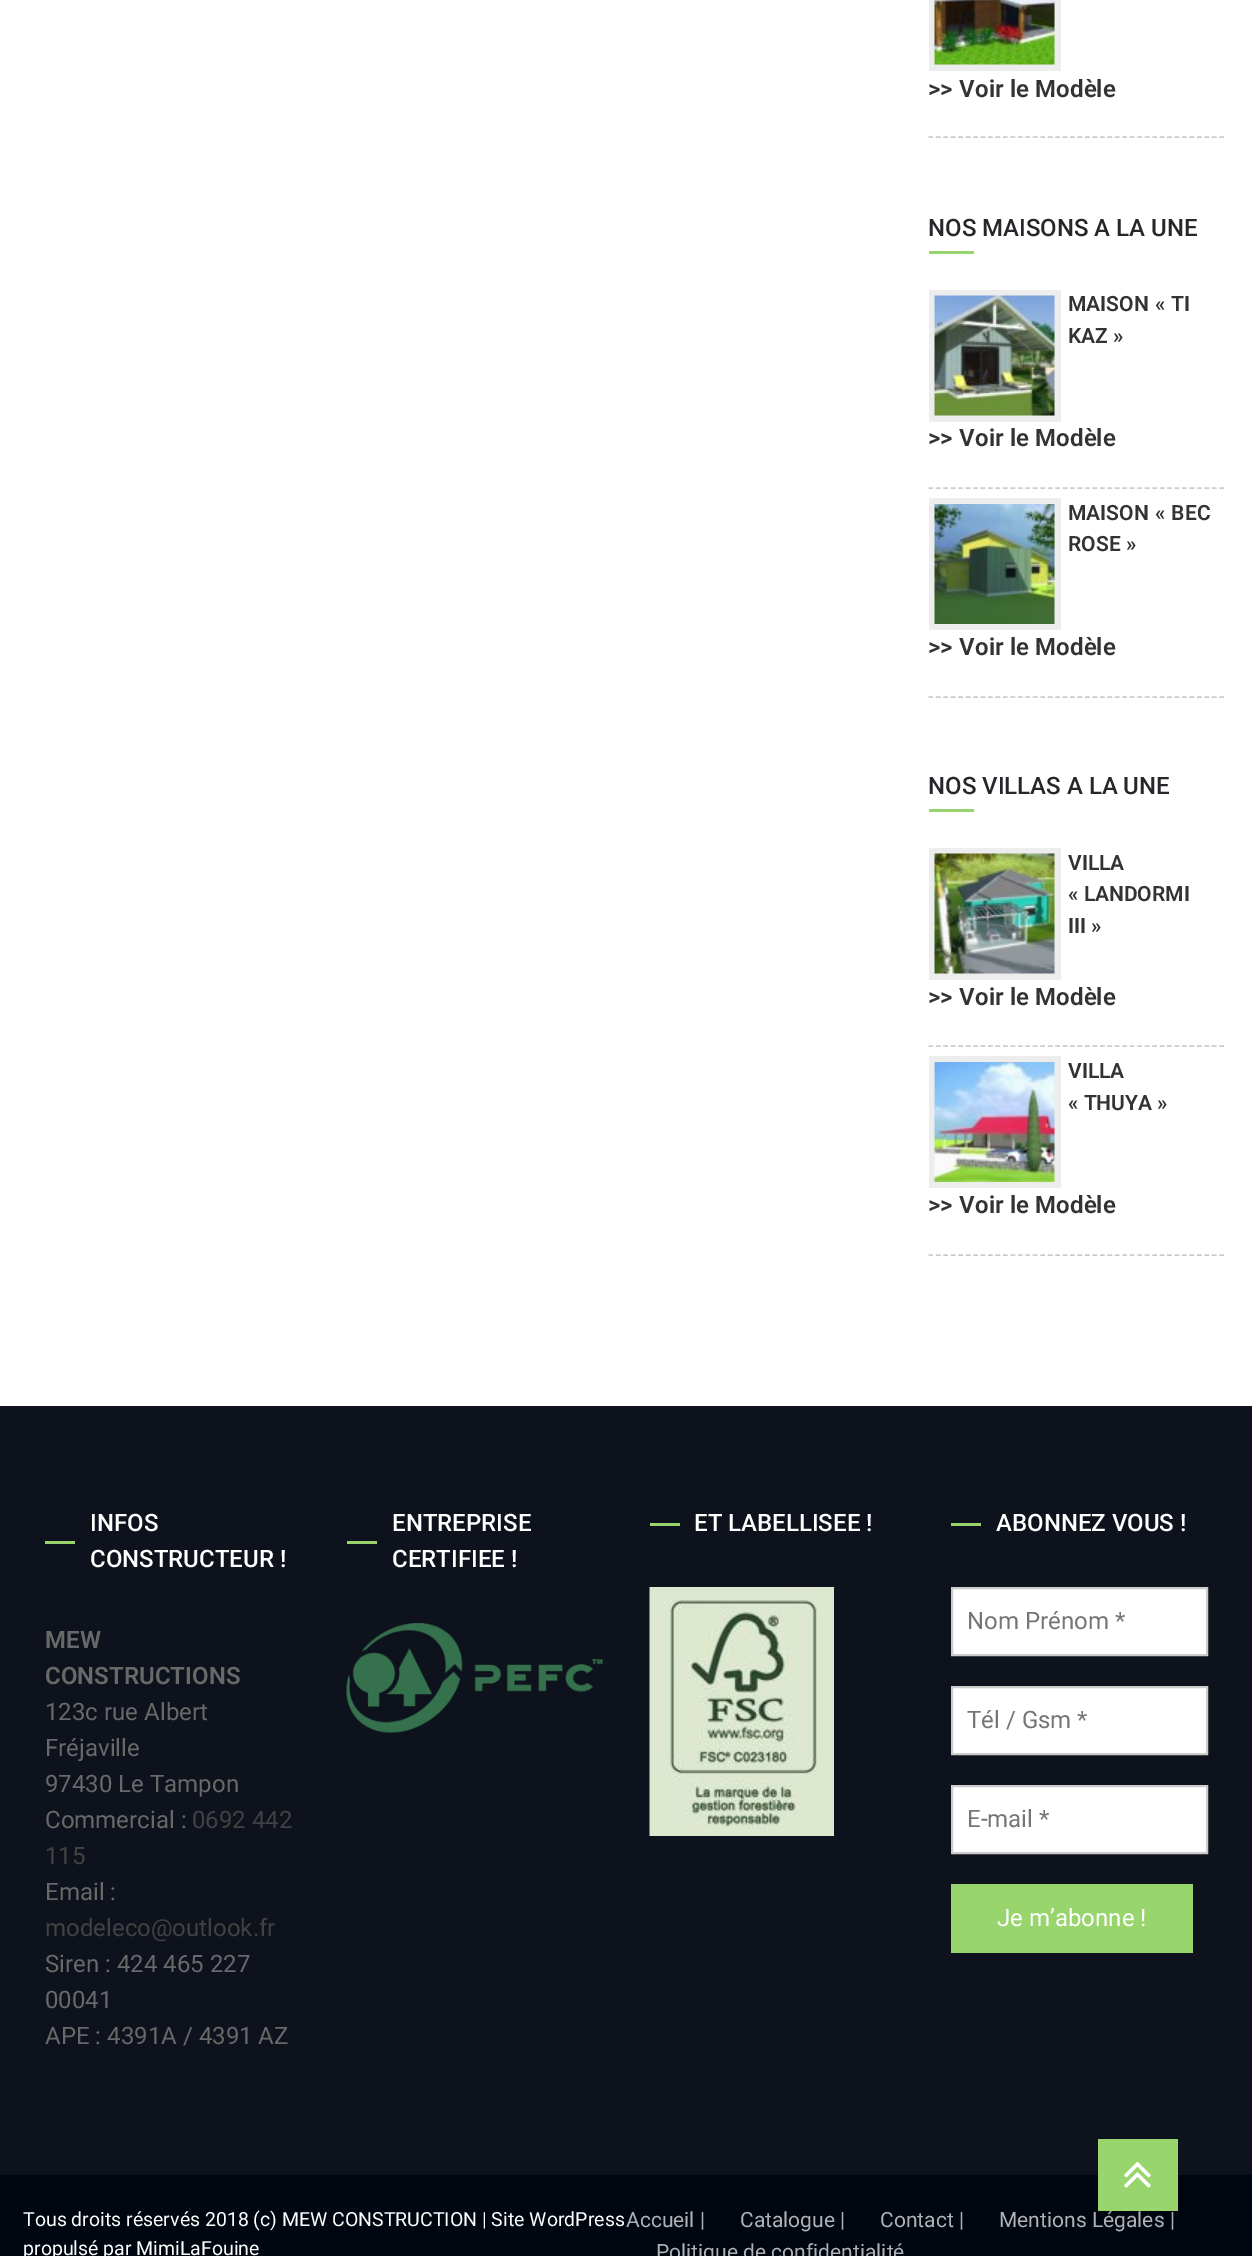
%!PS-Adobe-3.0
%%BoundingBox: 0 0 1252 2256
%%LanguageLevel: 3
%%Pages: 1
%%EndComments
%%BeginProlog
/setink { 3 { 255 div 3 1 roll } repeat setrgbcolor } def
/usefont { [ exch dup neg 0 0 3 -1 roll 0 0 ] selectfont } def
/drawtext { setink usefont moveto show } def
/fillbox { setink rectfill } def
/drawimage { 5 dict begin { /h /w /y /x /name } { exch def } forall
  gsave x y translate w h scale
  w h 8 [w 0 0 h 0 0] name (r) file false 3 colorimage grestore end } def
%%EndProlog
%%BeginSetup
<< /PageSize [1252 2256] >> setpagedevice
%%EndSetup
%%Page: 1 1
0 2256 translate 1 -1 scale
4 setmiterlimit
0 0 1252 2256 255 255 255 fillbox
929 0 132 71 237 237 237 fillbox
(assets/img1.rgb) 934 0 121 65 drawimage
/Roboto-SemiBold 24 usefont
51 51 51 setink
928 97 moveto 0.5 0 32 (>> Voir le Modèle) widthshow
204 204 204 setink
1.5 setlinewidth
[4.5 2.96] 0 setdash
928.5 137 moveto 1224 137 lineto stroke
(NOS MAISONS A LA UNE) 928 236 /Roboto-Medium 24 40 38 43 drawtext
929 251 45 3 152 214 109 fillbox
929 290 132 132 237 237 237 fillbox
(assets/img2.rgb) 934 295 121 121 drawimage
/Roboto-SemiBold 21 usefont
51 51 51 setink
1068 311 moveto 1 0 32 (MAISON « TI) widthshow
(KAZ ») 1068 343 /Roboto-SemiBold 21 51 51 51 drawtext
/Roboto-SemiBold 24 usefont
928 446 moveto 0.5 0 32 (>> Voir le Modèle) widthshow
204 204 204 setink
928.5 488 moveto 1224 488 lineto stroke
929 498 132 132 237 237 237 fillbox
(assets/img3.rgb) 934 504 121 120 drawimage
/Roboto-SemiBold 21 usefont
51 51 51 setink
1068 520 moveto 1 0 32 (MAISON « BEC) widthshow
(ROSE ») 1068 551 /Roboto-SemiBold 21 51 51 51 drawtext
/Roboto-SemiBold 24 usefont
928 655 moveto 0.5 0 32 (>> Voir le Modèle) widthshow
204 204 204 setink
928.5 697 moveto 1224 697 lineto stroke
(NOS VILLAS A LA UNE) 928 794 /Roboto-Medium 24 40 38 43 drawtext
929 809 45 3 152 214 109 fillbox
929 848 132 132 237 237 237 fillbox
(assets/img4.rgb) 934 853 121 121 drawimage
(VILLA) 1068 870 /Roboto-SemiBold 21 51 51 51 drawtext
(« LANDORMI) 1068 901 /Roboto-SemiBold 21 51 51 51 drawtext
(III ») 1068 933 /Roboto-SemiBold 21 51 51 51 drawtext
/Roboto-SemiBold 24 usefont
928 1005 moveto 0.5 0 32 (>> Voir le Modèle) widthshow
204 204 204 setink
928.5 1046 moveto 1224 1046 lineto stroke
929 1056 132 132 237 237 237 fillbox
(assets/img5.rgb) 934 1062 121 120 drawimage
(VILLA) 1068 1078 /Roboto-SemiBold 21 51 51 51 drawtext
(« THUYA ») 1068 1110 /Roboto-SemiBold 21 51 51 51 drawtext
/Roboto-SemiBold 24 usefont
928 1213 moveto 0.5 0 32 (>> Voir le Modèle) widthshow
204 204 204 setink
928.5 1255 moveto 1224 1255 lineto stroke
0 1406 1252 769 13 18 28 fillbox
(INFOS) 90 1531 /Roboto-Medium 24 255 255 255 drawtext
45 1541 30 3 152 214 109 fillbox
(CONSTRUCTEUR !) 90 1567 /Roboto-Medium 24 255 255 255 drawtext
(MEW) 45 1648 /Roboto-SemiBold 24 105 105 105 drawtext
(CONSTRUCTIONS) 45 1684 /Roboto-SemiBold 24 105 105 105 drawtext
(123c rue Albert) 45 1720 /Roboto-Regular 24 105 105 105 drawtext
(Fréjaville) 45 1756 /Roboto-Regular 24 105 105 105 drawtext
(97430 Le Tampon) 45 1792 /Roboto-Regular 24 105 105 105 drawtext
(Commercial :) 45 1828 /Roboto-Regular 24 105 105 105 drawtext
(0692 442) 192 1828 /Roboto-Regular 24 66 66 66 drawtext
(115) 45 1864 /Roboto-Regular 24 66 66 66 drawtext
(Email :) 45 1900 /Roboto-Regular 24 105 105 105 drawtext
(modeleco@outlook.fr) 45 1936 /Roboto-Regular 24 66 66 66 drawtext
(Siren : 424 465 227) 45 1972 /Roboto-Regular 24 105 105 105 drawtext
(00041) 45 2008 /Roboto-Regular 24 105 105 105 drawtext
(APE : 4391A / 4391 AZ) 45 2044 /Roboto-Regular 24 105 105 105 drawtext
(ENTREPRISE) 392 1531 /Roboto-Medium 24 255 255 255 drawtext
347 1541 30 3 152 214 109 fillbox
(CERTIFIEE !) 392 1567 /Roboto-Medium 24 255 255 255 drawtext
(assets/img6.rgb) 346 1623 257 110 drawimage
650 1523 30 3 152 214 109 fillbox
(ET LABELLISEE !) 694 1531 /Roboto-Medium 24 255 255 255 drawtext
(assets/img7.rgb) 649 1587 185 249 drawimage
951 1523 30 3 152 214 109 fillbox
(ABONNEZ VOUS !) 996 1531 /Roboto-Medium 24 255 255 255 drawtext
952 1588 moveto 1207 1588 lineto 1207 1655 lineto 952 1655 lineto closepath gsave fill grestore
204 204 204 setink
2 setlinewidth
[] 0 setdash
stroke
(Nom Prénom *) 967 1629 /Roboto-Regular 24 117 117 117 drawtext
255 255 255 setink
952 1687 moveto 1207 1687 lineto 1207 1754 lineto 952 1754 lineto closepath gsave fill grestore
204 204 204 setink
stroke
(Tél / Gsm *) 967 1728 /Roboto-Regular 24 117 117 117 drawtext
255 255 255 setink
952 1786 moveto 1207 1786 lineto 1207 1853 lineto 952 1853 lineto closepath gsave fill grestore
204 204 204 setink
stroke
(E-mail *) 967 1827 /Roboto-Regular 24 117 117 117 drawtext
951 1884 242 69 152 214 109 fillbox
(Je m’abonne !) 997 1926 /Roboto-Regular 24 255 255 255 drawtext
0 2175 1252 81 0 6 16 fillbox
(Tous droits réservés 2018 \(c\) MEW CONSTRUCTION | Site WordPress) 23 2226 /Roboto-Regular 19.5 255 255 255 drawtext
(propulsé par MimiLaFouine) 23 2255 /Roboto-Regular 19.5 255 255 255 drawtext
(Accueil |) 626 2227 /Roboto-Regular 21 176 178 181 drawtext
(Catalogue |) 740 2227 /Roboto-Regular 21 176 178 181 drawtext
(Contact |) 880 2227 /Roboto-Regular 21 176 178 181 drawtext
(Mentions Légales |) 999 2227 /Roboto-Regular 21 176 178 181 drawtext
(Politique de confidentialité) 656 2259 /Roboto-Regular 21 176 178 181 drawtext
1098 2139 80 72 152 214 109 fillbox
(assets/img8.rgb) 1124 2161 27 27 drawimage
showpage
%%EOF
